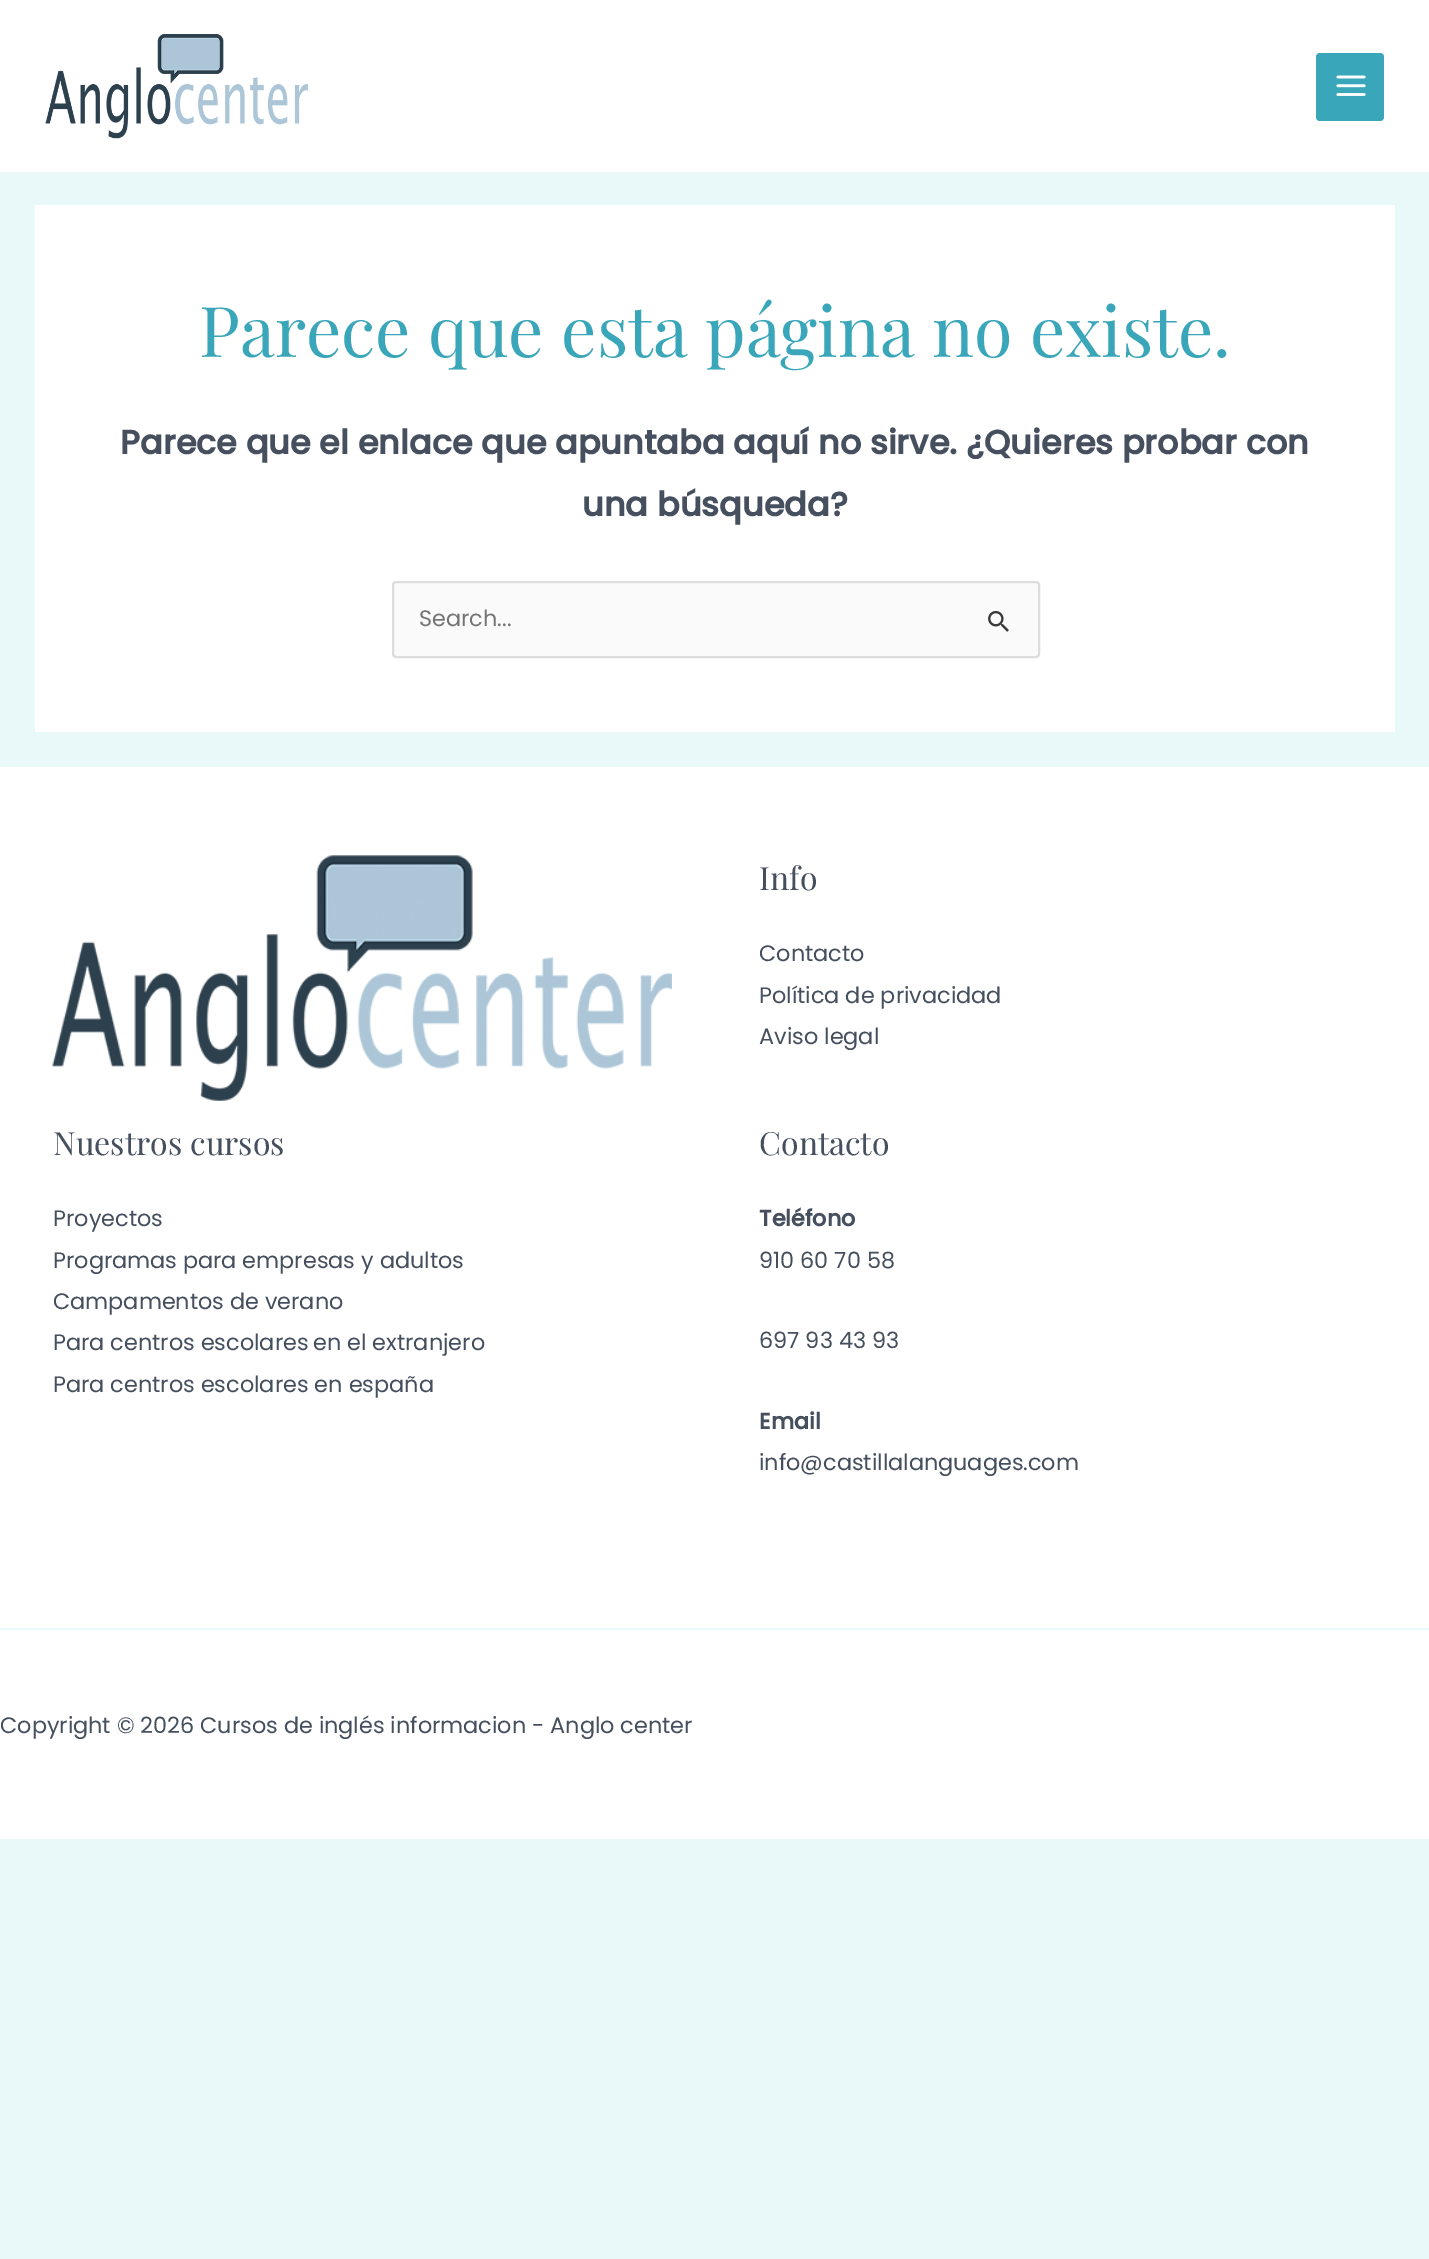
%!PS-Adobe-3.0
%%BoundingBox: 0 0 1429 2259
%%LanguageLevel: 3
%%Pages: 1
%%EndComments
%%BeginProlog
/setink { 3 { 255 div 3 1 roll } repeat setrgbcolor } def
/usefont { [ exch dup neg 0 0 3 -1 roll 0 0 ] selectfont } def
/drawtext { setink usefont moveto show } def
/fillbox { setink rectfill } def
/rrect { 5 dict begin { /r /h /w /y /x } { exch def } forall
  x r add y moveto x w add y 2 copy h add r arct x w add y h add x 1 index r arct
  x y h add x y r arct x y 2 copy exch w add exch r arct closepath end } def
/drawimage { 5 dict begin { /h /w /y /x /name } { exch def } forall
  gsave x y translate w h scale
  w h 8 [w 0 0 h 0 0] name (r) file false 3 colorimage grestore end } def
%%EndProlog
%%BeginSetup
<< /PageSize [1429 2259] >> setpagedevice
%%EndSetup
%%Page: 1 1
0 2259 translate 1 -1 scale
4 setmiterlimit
0 0 1429 2259 233 248 249 fillbox
0 0 1429 172 255 255 255 fillbox
(assets/img1.rgb) 45 34 263 105 drawimage
58 166 185 setink
1316 53 68 68 4 rrect fill
(assets/img2.rgb) 1336 75 30 21 drawimage
35 205 1360 527 255 255 255 fillbox
(Parece que esta página no existe.) 199 357 /PlayfairDisplay-Regular 70 58 166 185 drawtext
(Parece que el enlace que apuntaba aquí no sirve. ¿Quieres probar con) 120 454 /Poppins-Bold 33.5 69 79 94 drawtext
(una búsqueda?) 582 516 /Poppins-Bold 33.5 69 79 94 drawtext
250 250 250 setink
393 582 646 75 3 rrect gsave fill grestore
221 221 221 setink
2 setlinewidth
stroke
(Search...) 419 626 /Poppins-Regular 22.35 117 117 117 drawtext
(assets/img3.rgb) 988 610 21 22 drawimage
0 767 1429 1072 255 255 255 fillbox
(assets/img4.rgb) 52 855 620 246 drawimage
(Info) 759 890 /PlayfairDisplay-Regular 32 69 79 94 drawtext
(Contacto) 759 961 /Poppins-Regular 22.35 69 79 94 drawtext
(Política de privacidad) 759 1003 /Poppins-Regular 22.35 69 79 94 drawtext
(Aviso legal) 759 1044 /Poppins-Regular 22.35 69 79 94 drawtext
(Nuestros cursos) 53 1155 /PlayfairDisplay-Regular 32 69 79 94 drawtext
(Proyectos) 53 1226 /Poppins-Regular 22.35 69 79 94 drawtext
(Programas para empresas y adultos) 53 1268 /Poppins-Regular 22.35 69 79 94 drawtext
(Campamentos de verano) 53 1309 /Poppins-Regular 22.35 69 79 94 drawtext
(Para centros escolares) 53 1350 /Poppins-Regular 22.35 69 79 94 drawtext
(en el extranjero) 313 1350 /Poppins-Regular 22.35 69 79 94 drawtext
(Para centros escolares en españa) 53 1392 /Poppins-Regular 22.35 69 79 94 drawtext
(Contacto) 759 1155 /PlayfairDisplay-Regular 32 69 79 94 drawtext
(Teléfono) 759 1226 /Poppins-Bold 22.35 69 79 94 drawtext
(910 60 70 58) 759 1268 /Poppins-Regular 22.35 69 79 94 drawtext
(697 93 43 93) 759 1348 /Poppins-Regular 22.35 69 79 94 drawtext
(Email) 759 1429 /Poppins-Bold 22.35 69 79 94 drawtext
(info@castillalanguages.com) 759 1470 /Poppins-Regular 22.35 69 79 94 drawtext
0 1628 1429 2 233 248 249 fillbox
(Copyright © 2026 Cursos de inglés informacion - Anglo center) 0 1733 /Poppins-Regular 22.35 69 79 94 drawtext
showpage
%%EOF
